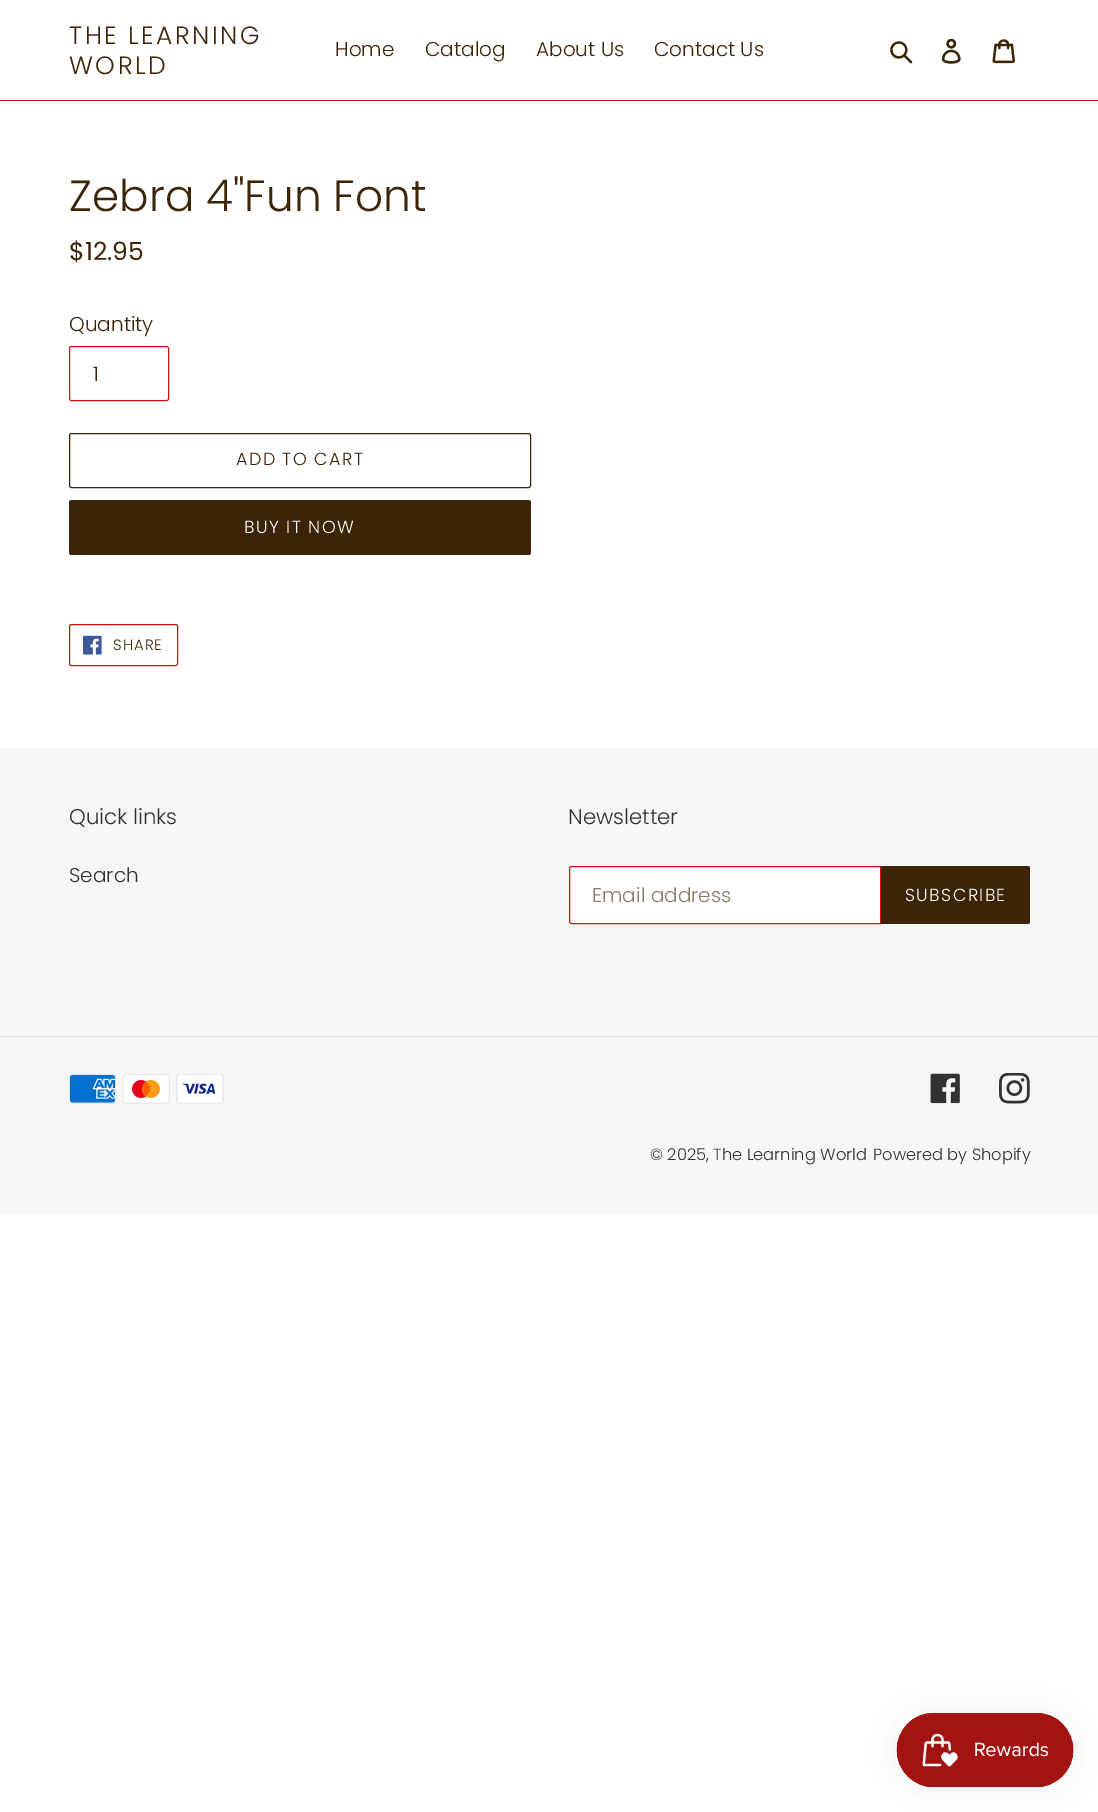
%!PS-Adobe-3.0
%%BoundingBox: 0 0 1098 1812
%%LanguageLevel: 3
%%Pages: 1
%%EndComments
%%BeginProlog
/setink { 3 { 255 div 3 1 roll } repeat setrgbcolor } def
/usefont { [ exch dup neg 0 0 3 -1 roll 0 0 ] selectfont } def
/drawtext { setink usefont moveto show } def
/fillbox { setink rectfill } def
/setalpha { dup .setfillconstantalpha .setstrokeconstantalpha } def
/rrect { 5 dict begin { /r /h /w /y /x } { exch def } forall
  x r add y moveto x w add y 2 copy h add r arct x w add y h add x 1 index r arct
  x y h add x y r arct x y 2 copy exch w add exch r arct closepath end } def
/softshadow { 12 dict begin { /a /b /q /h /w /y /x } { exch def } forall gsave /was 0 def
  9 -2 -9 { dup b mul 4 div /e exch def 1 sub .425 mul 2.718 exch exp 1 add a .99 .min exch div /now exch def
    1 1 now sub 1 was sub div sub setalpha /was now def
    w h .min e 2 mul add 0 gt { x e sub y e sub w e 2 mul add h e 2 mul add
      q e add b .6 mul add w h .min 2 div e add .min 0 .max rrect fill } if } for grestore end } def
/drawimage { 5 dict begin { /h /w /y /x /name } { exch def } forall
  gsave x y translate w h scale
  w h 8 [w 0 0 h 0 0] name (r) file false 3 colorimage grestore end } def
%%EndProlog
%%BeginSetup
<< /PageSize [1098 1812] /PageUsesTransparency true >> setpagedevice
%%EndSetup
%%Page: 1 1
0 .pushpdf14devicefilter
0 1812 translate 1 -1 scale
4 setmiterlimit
0 0 1098 1812 255 255 255 fillbox
0 100 1098 1 213 16 16 fillbox
/Poppins-Light 25 usefont
61 36 7 setink
69 44 moveto 2.5 0 (THE LEARNING) ashow
69 74 moveto 2.5 0 (WORLD) ashow
(Home) 335 56 /Poppins-Light 20 61 36 7 drawtext
(Catalog) 425 56 /Poppins-Light 20 61 36 7 drawtext
(About Us) 536 56 /Poppins-Light 20 61 36 7 drawtext
(Contact Us) 654 56 /Poppins-Light 20 61 36 7 drawtext
(assets/img1.rgb) 890 41 23 23 drawimage
(assets/img2.rgb) 941 39 20 25 drawimage
(assets/img3.rgb) 992 39 23 25 drawimage
(Zebra 4"Fun Font) 69 211 /Poppins-Light 43.75 61 36 7 drawtext
($12.95) 69 260 /Poppins-Regular 25 61 36 7 drawtext
(Quantity) 69 331 /Poppins-Light 20 61 36 7 drawtext
213 16 16 setink
69.5 346.5 99 54 2 rrect stroke
(1) 93 381 /Poppins-Light 20 61 36 7 drawtext
69.5 433.5 461 54 2 rrect stroke
/Poppins-Light 17.5 usefont
236 465 moveto 1.4 0 (ADD TO CART) ashow
69 500 462 55 2.5 rrect fill
255 255 255 setink
244 533 moveto 1.4 0 (BUY IT NOW) ashow
213 16 16 setink
69.5 624.5 108 41 2 rrect stroke
(assets/img4.rgb) 83 635 19 20 drawimage
/Poppins-Light 15 usefont
61 36 7 setink
113 650 moveto 1 0 (SHARE) ashow
0 748 1098 465 246 246 246 fillbox
(Quick links) 69 824 /Poppins-Light 21.25 51 50 50 drawtext
(Search) 69 882 /Poppins-Light 20 51 50 50 drawtext
(Newsletter) 568 824 /Poppins-Light 21.25 51 50 50 drawtext
255 255 255 setink
571.5 866.5 moveto 880.5 866.5 lineto 880.5 923.5 lineto 571.5 923.5 lineto 570.5 923.5 569.5 922.5 569.5 921.5 curveto 569.5 868.5 lineto 569.5 867.5 570.5 866.5 571.5 866.5 curveto closepath gsave fill grestore
213 16 16 setink
stroke
(Email address) 592 902 /Poppins-Light 20 139 124 106 drawtext
61 36 7 setink
881 866 moveto 1027.5 866 lineto 1029 866 1030 867 1030 868.5 curveto 1030 921.5 lineto 1030 923 1029 924 1027.5 924 curveto 881 924 lineto closepath fill
/Poppins-Light 17.5 usefont
255 255 255 setink
905 901 moveto 1.4 0 (SUBSCRIBE) ashow
0 1036 1098 1 221 221 221 fillbox
(assets/img5.rgb) 69 1074 47 30 drawimage
(assets/img6.rgb) 123 1074 47 30 drawimage
(assets/img7.rgb) 176 1074 48 30 drawimage
(assets/img8.rgb) 930 1073 30 31 drawimage
(assets/img9.rgb) 999 1073 31 31 drawimage
(© 2025, The Learning World) 650 1160 /Poppins-Light 16.25 51 50 50 drawtext
(Powered by Shopify) 873 1160 /Poppins-Light 16.25 51 50 50 drawtext
0 0 0 setink
896 1713 178 75 37.5 15.5 0.05 softshadow
(assets/img10.rgb) 896 1712 178 76 drawimage
.poppdf14devicefilter showpage
%%EOF
